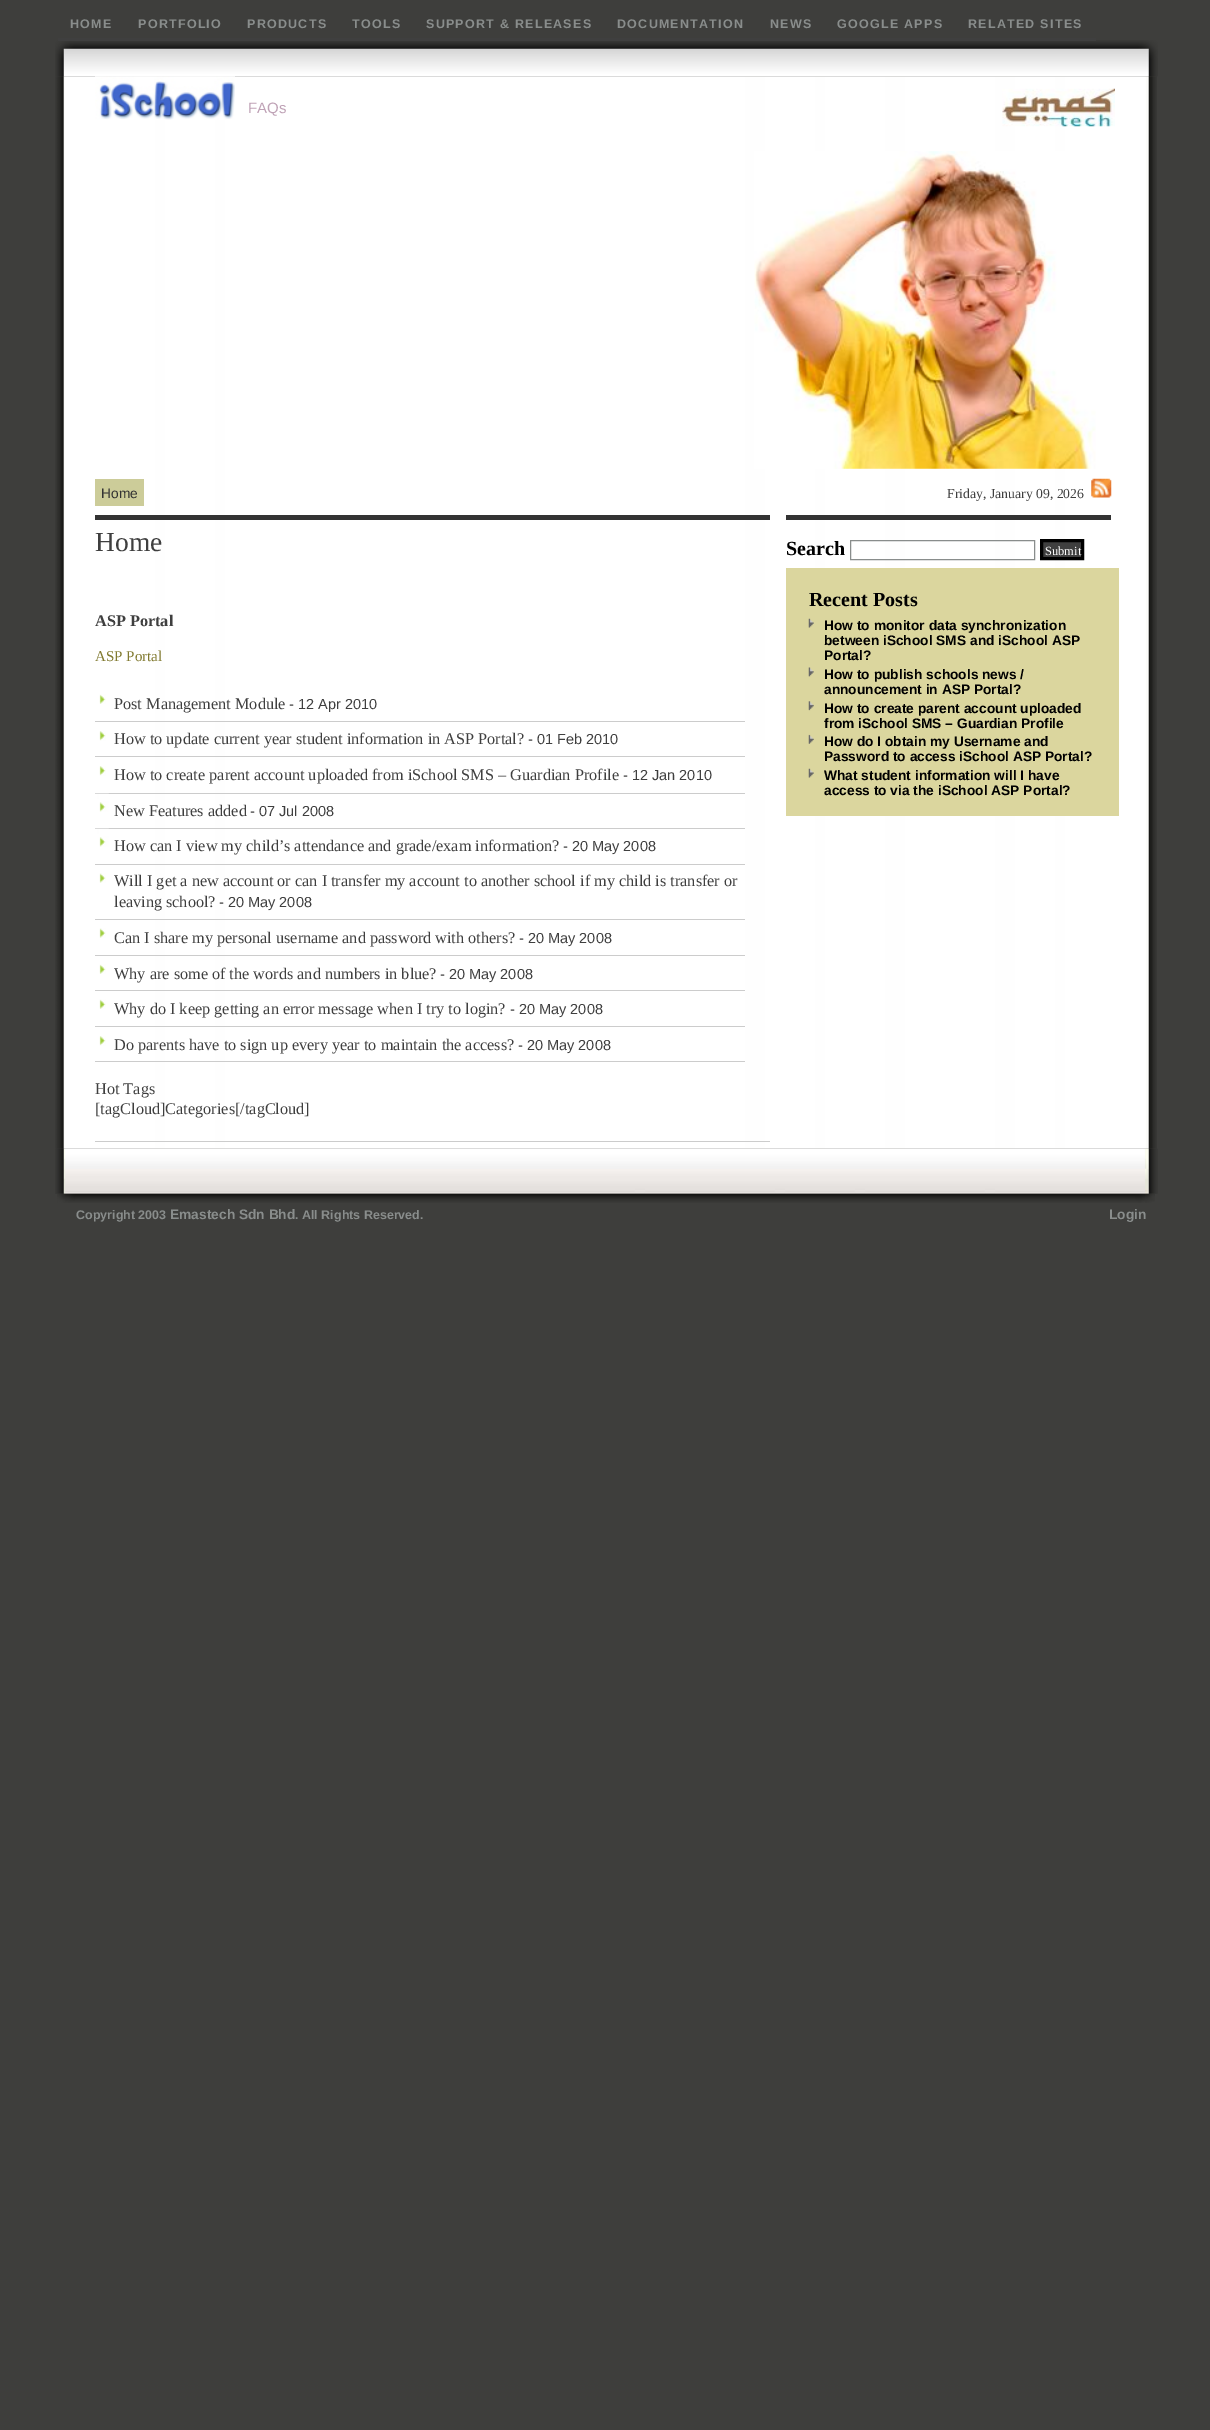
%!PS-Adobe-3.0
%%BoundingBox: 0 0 1210 2430
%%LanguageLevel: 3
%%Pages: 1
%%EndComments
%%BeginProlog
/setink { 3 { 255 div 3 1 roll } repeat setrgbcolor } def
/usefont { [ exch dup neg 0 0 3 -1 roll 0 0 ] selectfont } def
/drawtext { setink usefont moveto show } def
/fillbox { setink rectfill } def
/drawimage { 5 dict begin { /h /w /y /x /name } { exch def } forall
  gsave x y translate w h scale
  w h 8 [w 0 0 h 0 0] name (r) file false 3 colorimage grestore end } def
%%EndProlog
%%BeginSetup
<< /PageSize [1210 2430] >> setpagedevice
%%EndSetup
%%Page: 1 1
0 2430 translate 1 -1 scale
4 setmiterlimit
0 0 1210 2430 62 62 60 fillbox
(assets/img1.rgb) 55 40 1103 37 drawimage
58 38 1038 3 63 63 63 fillbox
/LiberationSans-Bold 12.5 usefont
137 141 140 setink
70 28 moveto 1.25 0 (HOME) ashow
138 28 moveto 1.25 0 (PORTFOLIO) ashow
247 28 moveto 1.25 0 (PRODUCTS) ashow
352 28 moveto 1.25 0 (TOOLS) ashow
426 28 moveto 1.25 0 (SUPPORT & RELEASES) ashow
617 28 moveto 1.25 0 (DOCUMENTATION) ashow
770 28 moveto 1.25 0 (NEWS) ashow
837 28 moveto 1.25 0 (GOOGLE APPS) ashow
968 28 moveto 1.25 0 (RELATED SITES) ashow
(assets/img2.rgb) 55 76 1102 1073 drawimage
(assets/img3.rgb) 95 76 140 44 drawimage
(FAQs) 248 113 /LiberationSans-Regular 15 191 162 182 drawtext
(assets/img4.rgb) 1002 88 113 39 drawimage
(assets/img5.rgb) 754 151 342 318 drawimage
95 479 49 27 204 204 153 fillbox
(Home) 101 498 /LiberationSans-Regular 13.75 51 51 51 drawtext
(Friday, January 09, 2026) 947 498 /LiberationSerif-Regular 13.75 63 63 63 drawtext
(assets/img6.rgb) 1091 478 21 20 drawimage
95 515 675 5 51 51 51 fillbox
(Home) 95 551 /LiberationSerif-Regular 27.5 63 63 63 drawtext
(ASP Portal) 95 626 /LiberationSerif-Bold 16.25 63 63 63 drawtext
(ASP Portal) 95 661 /LiberationSerif-Regular 15 129 122 48 drawtext
(assets/img7.rgb) 99 694 7 10 drawimage
95 721 650 1 204 204 204 fillbox
(Post Management Module) 114 709 /LiberationSerif-Regular 16.25 63 63 63 drawtext
(- 12 Apr 2010) 289 709 /LiberationSans-Regular 14.5 63 63 63 drawtext
(assets/img8.rgb) 99 731 7 10 drawimage
95 756 650 1 204 204 204 fillbox
(How to update current year student information in ASP Portal?) 114 744 /LiberationSerif-Regular 16.25 63 63 63 drawtext
(- 01 Feb 2010) 528 744 /LiberationSans-Regular 14.5 63 63 63 drawtext
(assets/img8.rgb) 99 766 7 10 drawimage
95 793 650 1 204 204 204 fillbox
(How to create parent account uploaded from iSchool SMS – Guardian Profile) 114 780 /LiberationSerif-Regular 16.25 63 63 63 drawtext
(- 12 Jan 2010) 623 780 /LiberationSans-Regular 14.5 63 63 63 drawtext
(assets/img9.rgb) 95 793 14 19 drawimage
95 828 650 1 204 204 204 fillbox
(New Features added) 114 816 /LiberationSerif-Regular 16.25 63 63 63 drawtext
(- 07 Jul 2008) 250 816 /LiberationSans-Regular 14.5 63 63 63 drawtext
(assets/img9.rgb) 95 828 14 19 drawimage
95 864 650 1 204 204 204 fillbox
(How can I view my child’s attendance and grade/exam information?) 114 851 /LiberationSerif-Regular 16.25 63 63 63 drawtext
(- 20 May 2008) 563 851 /LiberationSans-Regular 14.5 63 63 63 drawtext
(assets/img10.rgb) 99 873 7 10 drawimage
95 919 650 1 204 204 204 fillbox
(Will I get a new account or can I transfer my account to another school if my child is transfer or) 114 886 /LiberationSerif-Regular 16.25 63 63 63 drawtext
(leaving school?) 114 907 /LiberationSerif-Regular 16.25 63 63 63 drawtext
(- 20 May 2008) 219 907 /LiberationSans-Regular 14.5 63 63 63 drawtext
(assets/img10.rgb) 99 928 7 10 drawimage
95 955 650 1 204 204 204 fillbox
(Can I share my personal username and password with others?) 114 943 /LiberationSerif-Regular 16.25 63 63 63 drawtext
(- 20 May 2008) 519 943 /LiberationSans-Regular 14.5 63 63 63 drawtext
(assets/img7.rgb) 99 964 7 10 drawimage
95 990 650 1 204 204 204 fillbox
(Why are some of the words and numbers in blue?) 114 979 /LiberationSerif-Regular 16.25 63 63 63 drawtext
(- 20 May 2008) 440 979 /LiberationSans-Regular 14.5 63 63 63 drawtext
(assets/img7.rgb) 99 999 7 10 drawimage
95 1026 650 1 204 204 204 fillbox
(Why do I keep getting an error message when I try to login?) 114 1014 /LiberationSerif-Regular 16.25 63 63 63 drawtext
(- 20 May 2008) 510 1014 /LiberationSans-Regular 14.5 63 63 63 drawtext
(assets/img8.rgb) 99 1036 7 10 drawimage
95 1061 650 1 204 204 204 fillbox
(Do parents have to sign up every year to maintain the access?) 114 1050 /LiberationSerif-Regular 16.25 63 63 63 drawtext
(- 20 May 2008) 518 1050 /LiberationSans-Regular 14.5 63 63 63 drawtext
(Hot Tags) 95 1094 /LiberationSerif-Regular 16.25 63 63 63 drawtext
([tagCloud]Categories[/tagCloud]) 95 1114 /LiberationSerif-Regular 16.25 63 63 63 drawtext
95 1141 675 1 204 204 204 fillbox
786 515 325 5 51 51 51 fillbox
(Search) 786 555 /LiberationSerif-Bold 20 0 0 0 drawtext
137 141 140 setink
850.5 540.5 184 19 rectstroke
63 63 63 setink
1041.5 540.5 moveto 1082.5 540.5 lineto 1082.5 558.5 lineto 1041.5 558.5 lineto closepath gsave fill grestore
0 0 0 setink
3 setlinewidth
stroke
(Submit) 1045 555 /LiberationSerif-Regular 12.5 255 255 255 drawtext
786 568 333 248 219 214 158 fillbox
(Recent Posts) 809 606 /LiberationSerif-Bold 20 0 0 0 drawtext
(assets/img11.rgb) 808 618 6 10 drawimage
(How to monitor data synchronization) 824 630 /LiberationSans-Bold 13.75 0 0 0 drawtext
(between iSchool SMS and iSchool ASP) 824 645 /LiberationSans-Bold 13.75 0 0 0 drawtext
(Portal?) 824 660 /LiberationSans-Bold 13.75 0 0 0 drawtext
(assets/img12.rgb) 808 667 6 10 drawimage
(How to publish schools news /) 824 679 /LiberationSans-Bold 13.75 0 0 0 drawtext
(announcement in ASP Portal?) 824 694 /LiberationSans-Bold 13.75 0 0 0 drawtext
(assets/img13.rgb) 808 701 6 10 drawimage
(How to create parent account uploaded) 824 713 /LiberationSans-Bold 13.75 0 0 0 drawtext
(from iSchool SMS – Guardian Profile) 824 728 /LiberationSans-Bold 13.75 0 0 0 drawtext
(assets/img14.rgb) 808 734 6 10 drawimage
(How do I obtain my Username and) 824 746 /LiberationSans-Bold 13.75 0 0 0 drawtext
(Password to access iSchool ASP Portal?) 824 761 /LiberationSans-Bold 13.75 0 0 0 drawtext
(assets/img11.rgb) 808 768 6 10 drawimage
(What student information will I have) 824 780 /LiberationSans-Bold 13.75 0 0 0 drawtext
(access to via the iSchool ASP Portal?) 824 795 /LiberationSans-Bold 13.75 0 0 0 drawtext
(assets/img15.rgb) 55 1148 1103 46 drawimage
(assets/img16.rgb) 57 1193 1098 10 drawimage
(Copyright 2003) 76 1219 /LiberationSans-Bold 12.5 137 141 140 drawtext
(Emastech Sdn Bhd) 170 1219 /LiberationSans-Bold 13.75 137 141 140 drawtext
(. All Rights Reserved.) 295 1219 /LiberationSans-Bold 12.5 137 141 140 drawtext
(Login) 1109 1219 /LiberationSans-Bold 13.75 137 141 140 drawtext
showpage
%%EOF
